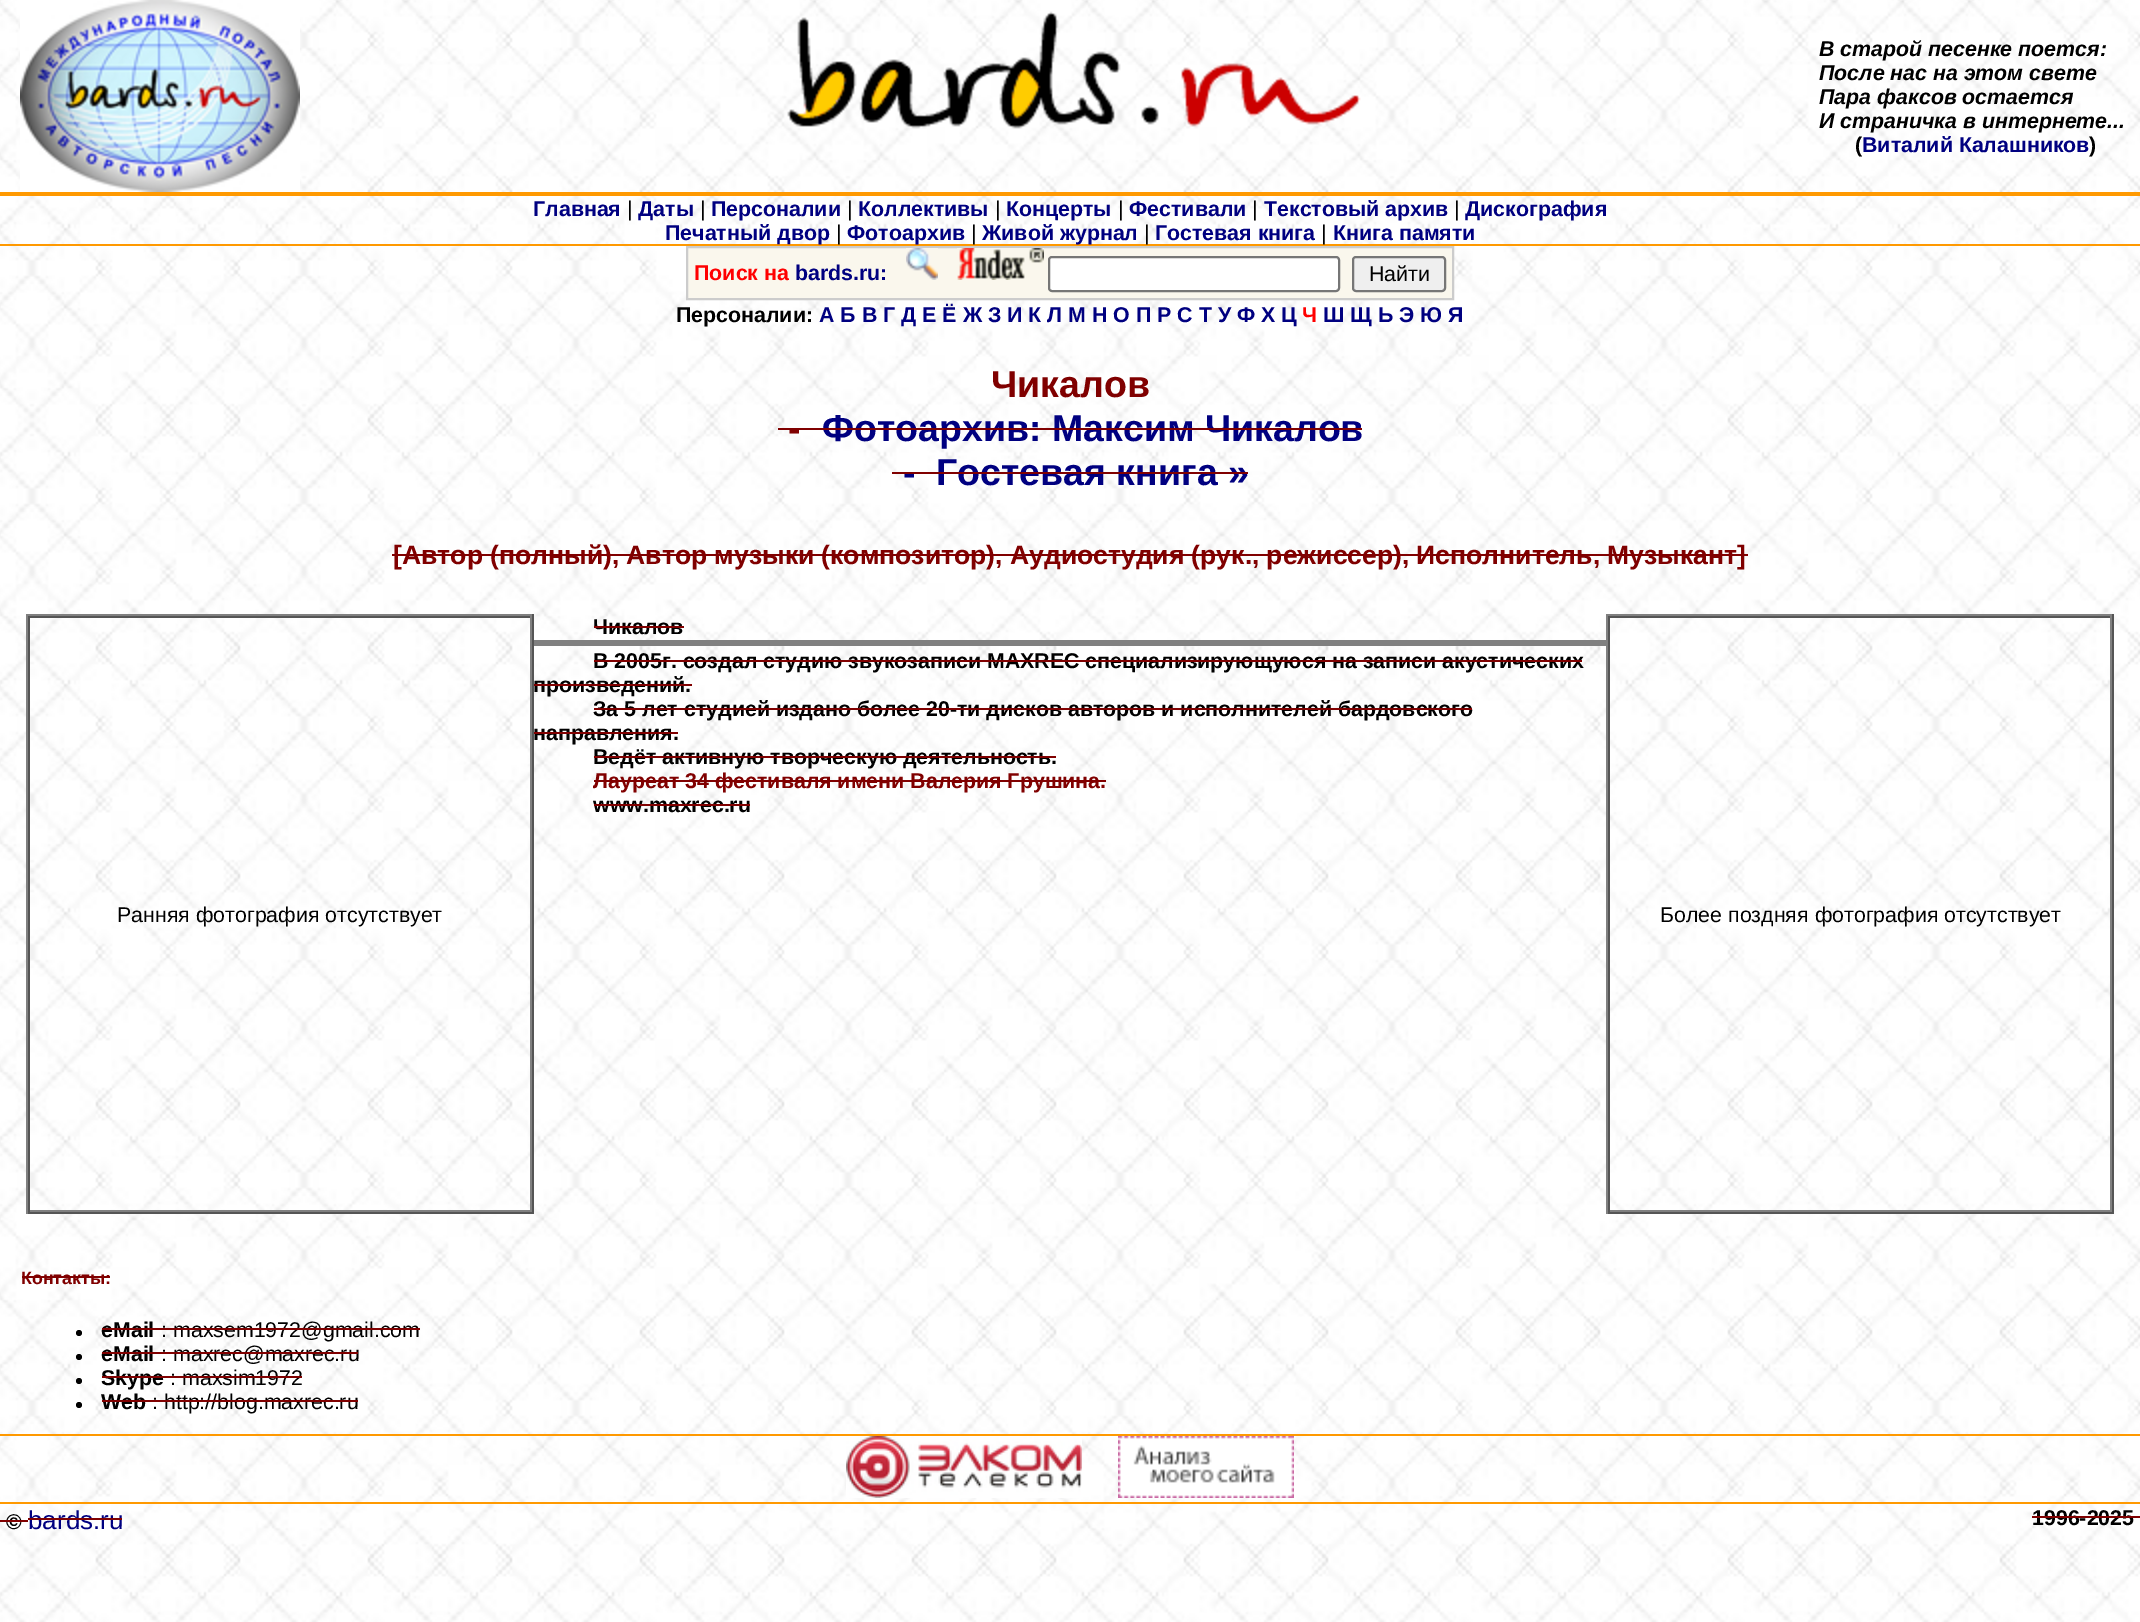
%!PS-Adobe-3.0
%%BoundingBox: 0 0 2140 1622
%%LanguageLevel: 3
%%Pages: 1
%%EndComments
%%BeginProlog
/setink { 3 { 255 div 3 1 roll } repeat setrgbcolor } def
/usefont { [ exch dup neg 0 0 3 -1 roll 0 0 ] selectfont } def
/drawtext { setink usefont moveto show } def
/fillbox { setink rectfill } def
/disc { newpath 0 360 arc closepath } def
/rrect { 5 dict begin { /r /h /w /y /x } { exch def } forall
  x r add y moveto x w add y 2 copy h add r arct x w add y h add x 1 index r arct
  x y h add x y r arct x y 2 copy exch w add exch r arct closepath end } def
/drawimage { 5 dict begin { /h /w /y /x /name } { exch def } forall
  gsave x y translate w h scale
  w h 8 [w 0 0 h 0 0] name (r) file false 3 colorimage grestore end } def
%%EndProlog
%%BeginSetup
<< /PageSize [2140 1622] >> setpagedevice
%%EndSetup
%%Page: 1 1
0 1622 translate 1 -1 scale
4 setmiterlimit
0 0 2140 1622 255 255 255 fillbox
(assets/img1.rgb) 0 0 2140 1622 drawimage
(assets/img2.rgb) 20 0 280 192 drawimage
(assets/img3.rgb) 787 11 574 118 drawimage
(В старой песенке поется:) 1819 56 /LiberationSans-BoldItalic 21.35 0 0 0 drawtext
(После нас на этом свете) 1819 80 /LiberationSans-BoldItalic 21.35 0 0 0 drawtext
(Пара факсов остается) 1819 104 /LiberationSans-BoldItalic 21.35 0 0 0 drawtext
(И страничка в интернете...) 1819 128 /LiberationSans-BoldItalic 21.35 0 0 0 drawtext
(\() 1855 152 /LiberationSans-Bold 21.35 0 0 0 drawtext
(Виталий Калашников) 1862 152 /LiberationSans-Bold 21.35 0 0 128 drawtext
(\)) 2089 152 /LiberationSans-Bold 21.35 0 0 0 drawtext
0 192 2140 4 255 153 0 fillbox
(Главная) 533 216 /LiberationSans-Bold 21.35 0 0 128 drawtext
(|) 627 216 /LiberationSans-Regular 21.35 0 0 0 drawtext
(Даты) 638 216 /LiberationSans-Bold 21.35 0 0 128 drawtext
(|) 700 216 /LiberationSans-Regular 21.35 0 0 0 drawtext
(Персоналии) 711 216 /LiberationSans-Bold 21.35 0 0 128 drawtext
(|) 847 216 /LiberationSans-Regular 21.35 0 0 0 drawtext
(Коллективы) 858 216 /LiberationSans-Bold 21.35 0 0 128 drawtext
(|) 995 216 /LiberationSans-Regular 21.35 0 0 0 drawtext
(Концерты) 1006 216 /LiberationSans-Bold 21.35 0 0 128 drawtext
(|) 1118 216 /LiberationSans-Regular 21.35 0 0 0 drawtext
(Фестивали) 1129 216 /LiberationSans-Bold 21.35 0 0 128 drawtext
(|) 1252 216 /LiberationSans-Regular 21.35 0 0 0 drawtext
(Текстовый архив) 1264 216 /LiberationSans-Bold 21.35 0 0 128 drawtext
(|) 1454 216 /LiberationSans-Regular 21.35 0 0 0 drawtext
(Дискография) 1465 216 /LiberationSans-Bold 21.35 0 0 128 drawtext
0 244 2140 2 255 153 0 fillbox
(Печатный двор) 665 240 /LiberationSans-Bold 21.35 0 0 128 drawtext
(|) 836 240 /LiberationSans-Regular 21.35 0 0 0 drawtext
(Фотоархив) 847 240 /LiberationSans-Bold 21.35 0 0 128 drawtext
(|) 971 240 /LiberationSans-Regular 21.35 0 0 0 drawtext
(Живой журнал) 982 240 /LiberationSans-Bold 21.35 0 0 128 drawtext
(|) 1144 240 /LiberationSans-Regular 21.35 0 0 0 drawtext
(Гостевая книга) 1155 240 /LiberationSans-Bold 21.35 0 0 128 drawtext
(|) 1321 240 /LiberationSans-Regular 21.35 0 0 0 drawtext
(Книга памяти) 1333 240 /LiberationSans-Bold 21.35 0 0 128 drawtext
250 247 237 setink
687 247 moveto 1453 247 lineto 1453 299 lineto 687 299 lineto closepath gsave fill grestore
204 204 204 setink
2 setlinewidth
stroke
(Поиск на) 694 280 /LiberationSans-Bold 21.35 255 0 0 drawtext
(bards.ru:) 795 280 /LiberationSans-Bold 21.35 0 0 128 drawtext
(assets/img4.rgb) 906 248 32 32 drawimage
(assets/img5.rgb) 957 248 87 32 drawimage
255 255 255 setink
1049 257 290 34 3 rrect gsave fill grestore
118 118 118 setink
stroke
239 239 239 setink
1353 257 92 34 3 rrect gsave fill grestore
118 118 118 setink
stroke
(Найти) 1369 281 /LiberationSans-Regular 21.35 0 0 0 drawtext
(Персоналии:) 676 322 /LiberationSans-Bold 21.35 0 0 0 drawtext
(А Б В Г Д Е Ё Ж З И К Л М Н О П Р С Т У Ф Х Ц) 819 322 /LiberationSans-Bold 21.35 0 0 128 drawtext
(Ч) 1302 322 /LiberationSans-Bold 21.35 255 0 0 drawtext
(Ш Щ Ь Э Ю Я) 1323 322 /LiberationSans-Bold 21.35 0 0 128 drawtext
(Чикалов) 991 397 /LiberationSans-Bold 37.5 128 0 0 drawtext
(-) 788 441 /LiberationSans-Bold 37.5 128 0 0 drawtext
778 428 44 2 128 0 0 fillbox
(Фотоархив: Максим Чикалов) 822 441 /LiberationSans-Bold 37.5 0 0 128 drawtext
822 428 540 2 128 0 0 fillbox
(-) 903 485 /LiberationSans-Bold 37.5 0 0 128 drawtext
(Гостевая книга ») 936 485 /LiberationSans-Bold 37.5 0 0 128 drawtext
892 472 44 2 128 0 0 fillbox
936 472 312 2 128 0 0 fillbox
/LiberationSans-Bold 26.55 usefont
393 564 moveto -0.25 0 32 ([Автор \(полный\), Автор музыки \(композитор\), Аудиостудия \(рук., режиссер\), Исполнитель, Музыкант]) widthshow
392 554 1356 2 128 0 0 fillbox
(Чикалов) 593 634 /LiberationSans-Bold 21.35 0 0 0 drawtext
594 626 90 2 128 0 0 fillbox
536 642 1068 4 128 128 128 fillbox
534 640 1072 2 128 128 128 fillbox
1604 640 2 6 128 128 128 fillbox
534 640 2 6 128 128 128 fillbox
(В 2005г. создал студию звукозаписи MAXREC специализирующуюся на записи акустических) 593 668 /LiberationSans-Bold 21.35 0 0 0 drawtext
594 660 988 2 128 0 0 fillbox
(произведений.) 533 692 /LiberationSans-Bold 21.35 0 0 0 drawtext
534 684 158 2 128 0 0 fillbox
(За 5 лет студией издано более 20-ти дисков авторов и исполнителей бардовского) 593 716 /LiberationSans-Bold 21.35 0 0 0 drawtext
594 708 878 2 128 0 0 fillbox
(направления.) 533 740 /LiberationSans-Bold 21.35 0 0 0 drawtext
534 732 144 2 128 0 0 fillbox
(Ведёт активную творческую деятельность.) 593 764 /LiberationSans-Bold 21.35 0 0 0 drawtext
594 756 462 2 128 0 0 fillbox
(Лауреат 34 фестиваля имени Валерия Грушина.) 593 788 /LiberationSans-Bold 21.35 128 0 0 drawtext
594 780 512 2 128 0 0 fillbox
(www.maxrec.ru) 593 812 /LiberationSans-Bold 21.35 0 0 0 drawtext
594 804 156 2 128 0 0 fillbox
26 614 508 2 128 128 128 fillbox
532 614 2 600 85 85 85 fillbox
26 1212 508 2 85 85 85 fillbox
26 614 2 600 128 128 128 fillbox
28 616 504 2 85 85 85 fillbox
530 616 2 596 128 128 128 fillbox
28 1210 504 2 128 128 128 fillbox
28 616 2 596 85 85 85 fillbox
(Ранняя фотография отсутствует) 117 922 /LiberationSans-Regular 21.35 0 0 0 drawtext
1606 614 508 2 128 128 128 fillbox
2112 614 2 600 85 85 85 fillbox
1606 1212 508 2 85 85 85 fillbox
1606 614 2 600 128 128 128 fillbox
1608 616 504 2 85 85 85 fillbox
2110 616 2 596 128 128 128 fillbox
1608 1210 504 2 128 128 128 fillbox
1608 616 2 596 85 85 85 fillbox
(Более поздняя фотография отсутствует) 1660 922 /LiberationSans-Regular 21.35 0 0 0 drawtext
(Контакты:) 21 1284 /LiberationSans-Bold 17.75 128 0 0 drawtext
22 1276 88 2 128 0 0 fillbox
0 0 0 setink
79 1333 3 disc fill
(eMail) 101 1337 /LiberationSans-Bold 21.35 0 0 0 drawtext
102 1328 52 2 128 0 0 fillbox
(: maxsem1972@gmail.com) 161 1337 /LiberationSans-Regular 21.35 0 0 0 drawtext
154 1328 266 2 128 0 0 fillbox
0 0 0 setink
79 1357 3 disc fill
(eMail) 101 1361 /LiberationSans-Bold 21.35 0 0 0 drawtext
102 1352 52 2 128 0 0 fillbox
(: maxrec@maxrec.ru) 161 1361 /LiberationSans-Regular 21.35 0 0 0 drawtext
154 1352 204 2 128 0 0 fillbox
0 0 0 setink
79 1381 3 disc fill
(Skype) 101 1385 /LiberationSans-Bold 21.35 0 0 0 drawtext
102 1376 62 2 128 0 0 fillbox
(: maxsim1972) 170 1385 /LiberationSans-Regular 21.35 0 0 0 drawtext
164 1376 138 2 128 0 0 fillbox
0 0 0 setink
79 1405 3 disc fill
(Web) 101 1409 /LiberationSans-Bold 21.35 0 0 0 drawtext
102 1400 44 2 128 0 0 fillbox
(: http://blog.maxrec.ru) 152 1409 /LiberationSans-Regular 21.35 0 0 0 drawtext
146 1400 212 2 128 0 0 fillbox
0 1434 2140 2 255 153 0 fillbox
(assets/img6.rgb) 846 1436 236 62 drawimage
(assets/img7.rgb) 1118 1436 176 62 drawimage
0 1502 2140 2 255 153 0 fillbox
(©) 6 1529 /LiberationSans-Bold 21.35 0 0 0 drawtext
0 1520 28 2 128 0 0 fillbox
(bards.ru) 28 1529 /LiberationSans-Regular 26 0 0 128 drawtext
28 1518 94 2 128 0 0 fillbox
(1996-2025) 2032 1525 /LiberationSans-Bold 21.35 0 0 0 drawtext
2032 1516 108 2 128 0 0 fillbox
showpage
%%EOF
